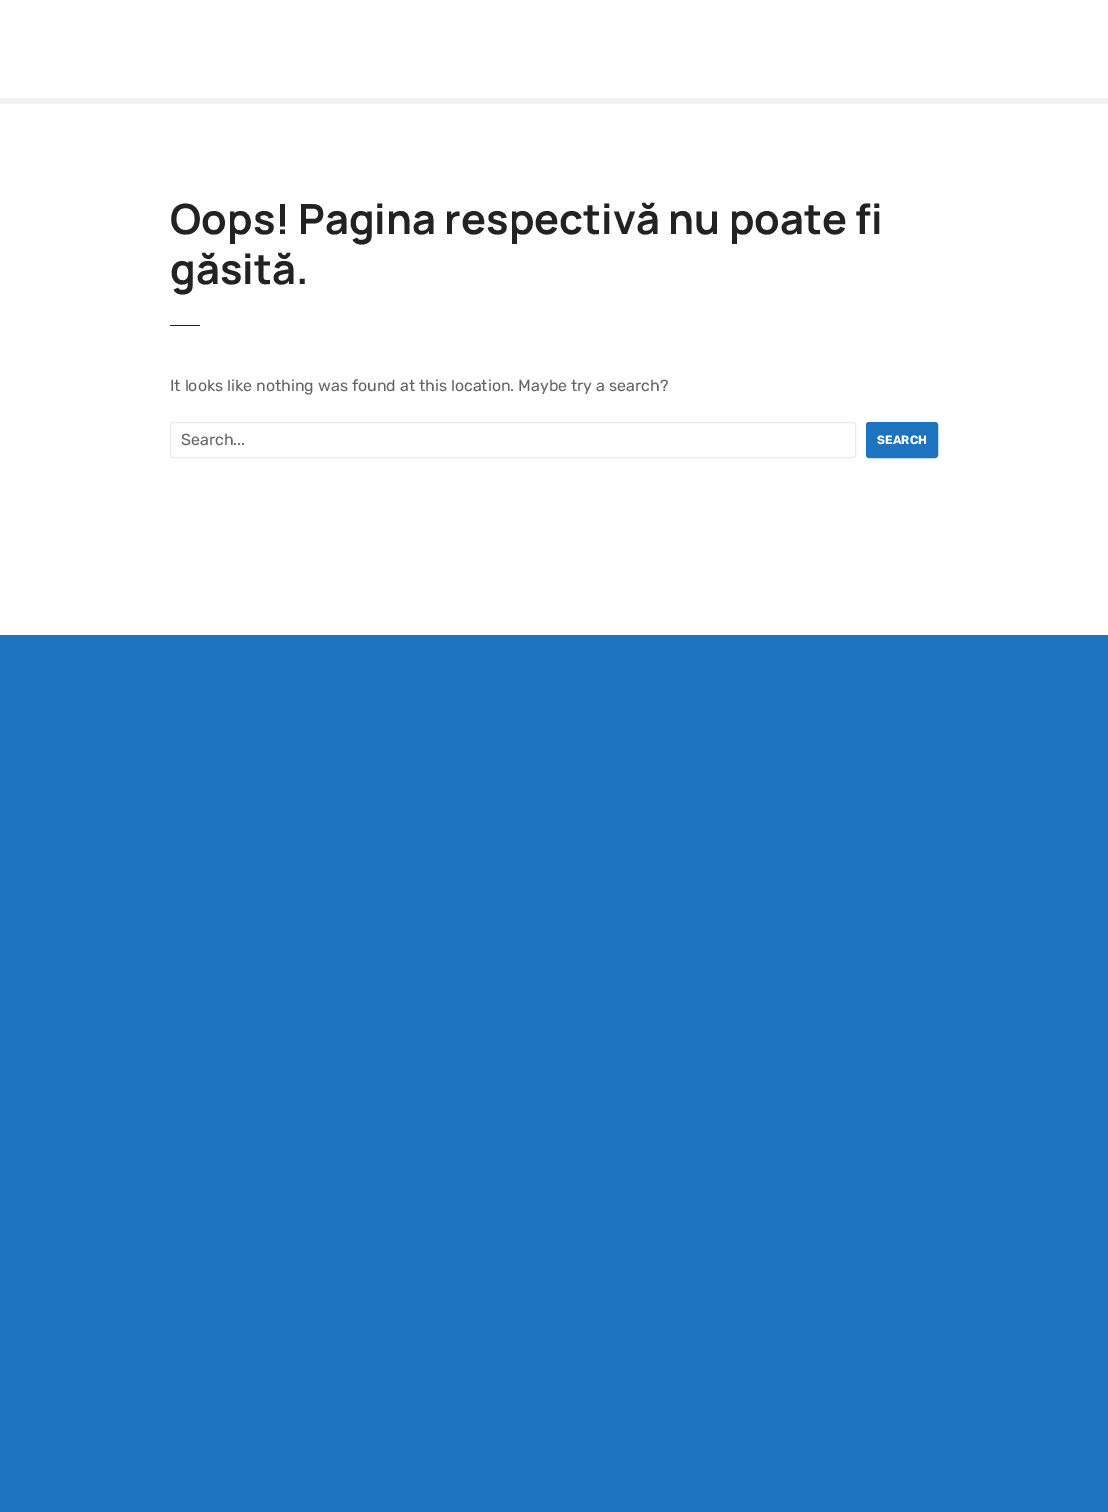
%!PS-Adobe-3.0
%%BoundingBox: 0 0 1108 1512
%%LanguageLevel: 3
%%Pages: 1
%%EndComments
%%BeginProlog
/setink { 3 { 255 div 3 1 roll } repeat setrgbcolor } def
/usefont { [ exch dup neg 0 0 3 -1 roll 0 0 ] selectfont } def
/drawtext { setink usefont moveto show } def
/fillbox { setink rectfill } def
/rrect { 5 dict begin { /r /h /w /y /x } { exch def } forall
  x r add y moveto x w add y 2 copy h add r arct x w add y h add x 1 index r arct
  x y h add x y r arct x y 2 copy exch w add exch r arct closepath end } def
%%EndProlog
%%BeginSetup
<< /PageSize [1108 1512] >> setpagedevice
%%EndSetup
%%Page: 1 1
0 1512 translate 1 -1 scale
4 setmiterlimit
0 0 1108 1512 255 255 255 fillbox
0 98 1108 6 242 242 242 fillbox
(Oops! Pagina respectivă nu poate fi) 170 234 /Manrope-Bold 41.6 34 34 34 drawtext
(găsită.) 170 284 /Manrope-Bold 41.6 34 34 34 drawtext
170 325 30 1 34 34 34 fillbox
(It looks like nothing was found at this location. Maybe try a search?) 170 391 /Rubik-Regular 16 100 100 100 drawtext
233 233 233 setink
170.5 422.5 685 35 2.5 rrect stroke
(Search...) 181 445 /Rubik-Regular 16 100 100 100 drawtext
30 115 190 setink
866.5 422.5 71 35 2.5 rrect gsave fill grestore
stroke
(SEARCH) 877 444 /Rubik-Bold 12 255 255 255 drawtext
0 635 1108 877 30 115 190 fillbox
showpage
%%EOF
